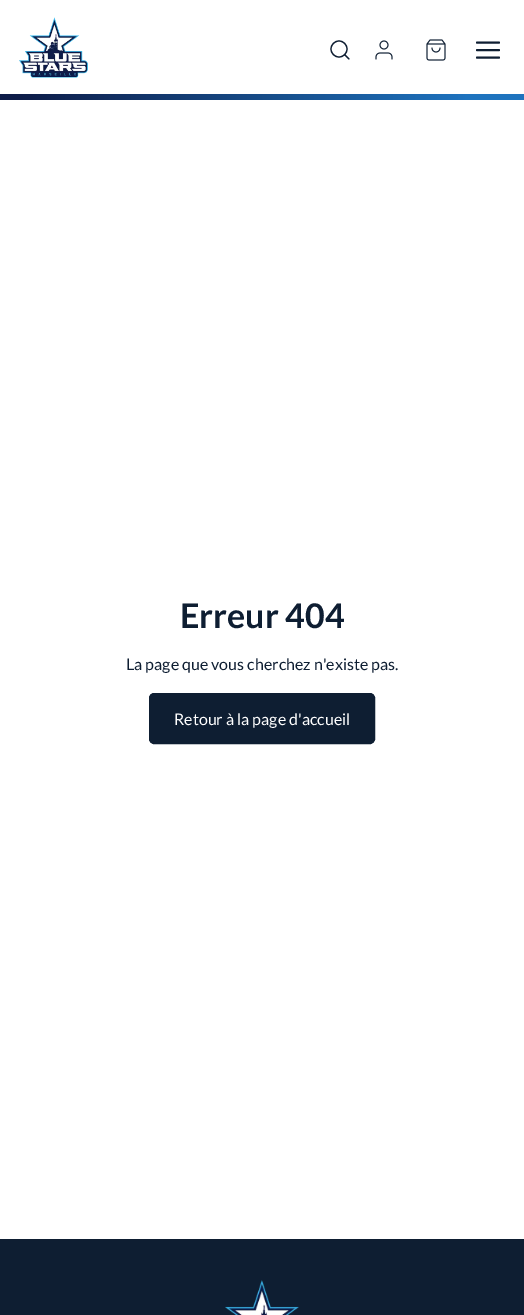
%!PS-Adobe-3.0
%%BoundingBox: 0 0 524 1315
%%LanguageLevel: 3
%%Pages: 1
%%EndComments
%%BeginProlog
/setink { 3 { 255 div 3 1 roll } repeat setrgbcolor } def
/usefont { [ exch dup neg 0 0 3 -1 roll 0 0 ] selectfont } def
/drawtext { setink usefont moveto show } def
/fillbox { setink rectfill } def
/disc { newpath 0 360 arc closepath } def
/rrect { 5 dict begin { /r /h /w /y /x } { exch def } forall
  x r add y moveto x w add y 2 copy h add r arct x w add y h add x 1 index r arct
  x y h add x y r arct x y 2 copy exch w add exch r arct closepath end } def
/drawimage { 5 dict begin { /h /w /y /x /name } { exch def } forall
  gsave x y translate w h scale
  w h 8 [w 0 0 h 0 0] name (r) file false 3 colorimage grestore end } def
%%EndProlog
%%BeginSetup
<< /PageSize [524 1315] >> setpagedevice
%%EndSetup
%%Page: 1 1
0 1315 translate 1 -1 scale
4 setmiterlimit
0 0 524 1315 255 255 255 fillbox
(assets/img1.rgb) 19 17 69 61 drawimage
14 30 50 setink
1.2 setlinewidth
339 49 8 disc stroke
1 setlinecap
1 setlinejoin
349 59 moveto 344.5 54.5 lineto stroke
(assets/img2.rgb) 375 40 18 20 drawimage
(assets/img3.rgb) 426 39 20 22 drawimage
2 setlinewidth
477 50 moveto 499 50 lineto 477 42.5 moveto 499 42.5 lineto 477 57.5 moveto 499 57.5 lineto stroke
gsave 0 94 moveto 524 94 lineto 524 100 lineto 0 100 lineto closepath clip newpath
<< /ShadingType 2 /ColorSpace /DeviceRGB /Coords [524 97 0 97] /Extend [true true] /Function << /FunctionType 3 /Domain [0 1] /Functions [<< /FunctionType 2 /Domain [0 1] /C0 [0.118 0.451 0.745] /C1 [0.118 0.451 0.745] /N 1 >> << /FunctionType 2 /Domain [0 1] /C0 [0.118 0.451 0.745] /C1 [0.055 0.114 0.286] /N 1 >> << /FunctionType 2 /Domain [0 1] /C0 [0.055 0.114 0.286] /C1 [0.055 0.114 0.286] /N 1 >>] /Bounds [0.11 0.96] /Encode [0 1 0 1 0 1] >> >> shfill grestore
(Erreur 404) 180 628 /Lato-Bold 34 14 30 50 drawtext
(La page que vous cherchez n'existe pas.) 126 670 /Lato-Regular 16 14 30 50 drawtext
149.5 693.5 225 50 4.5 rrect gsave fill grestore
1 setlinewidth
0 setlinecap
0 setlinejoin
stroke
(Retour à la page d'accueil) 174 725 /Lato-Regular 16 255 255 255 drawtext
0 1239 524 76 14 30 50 fillbox
(assets/img4.rgb) 225 1280 74 35 drawimage
showpage
%%EOF
